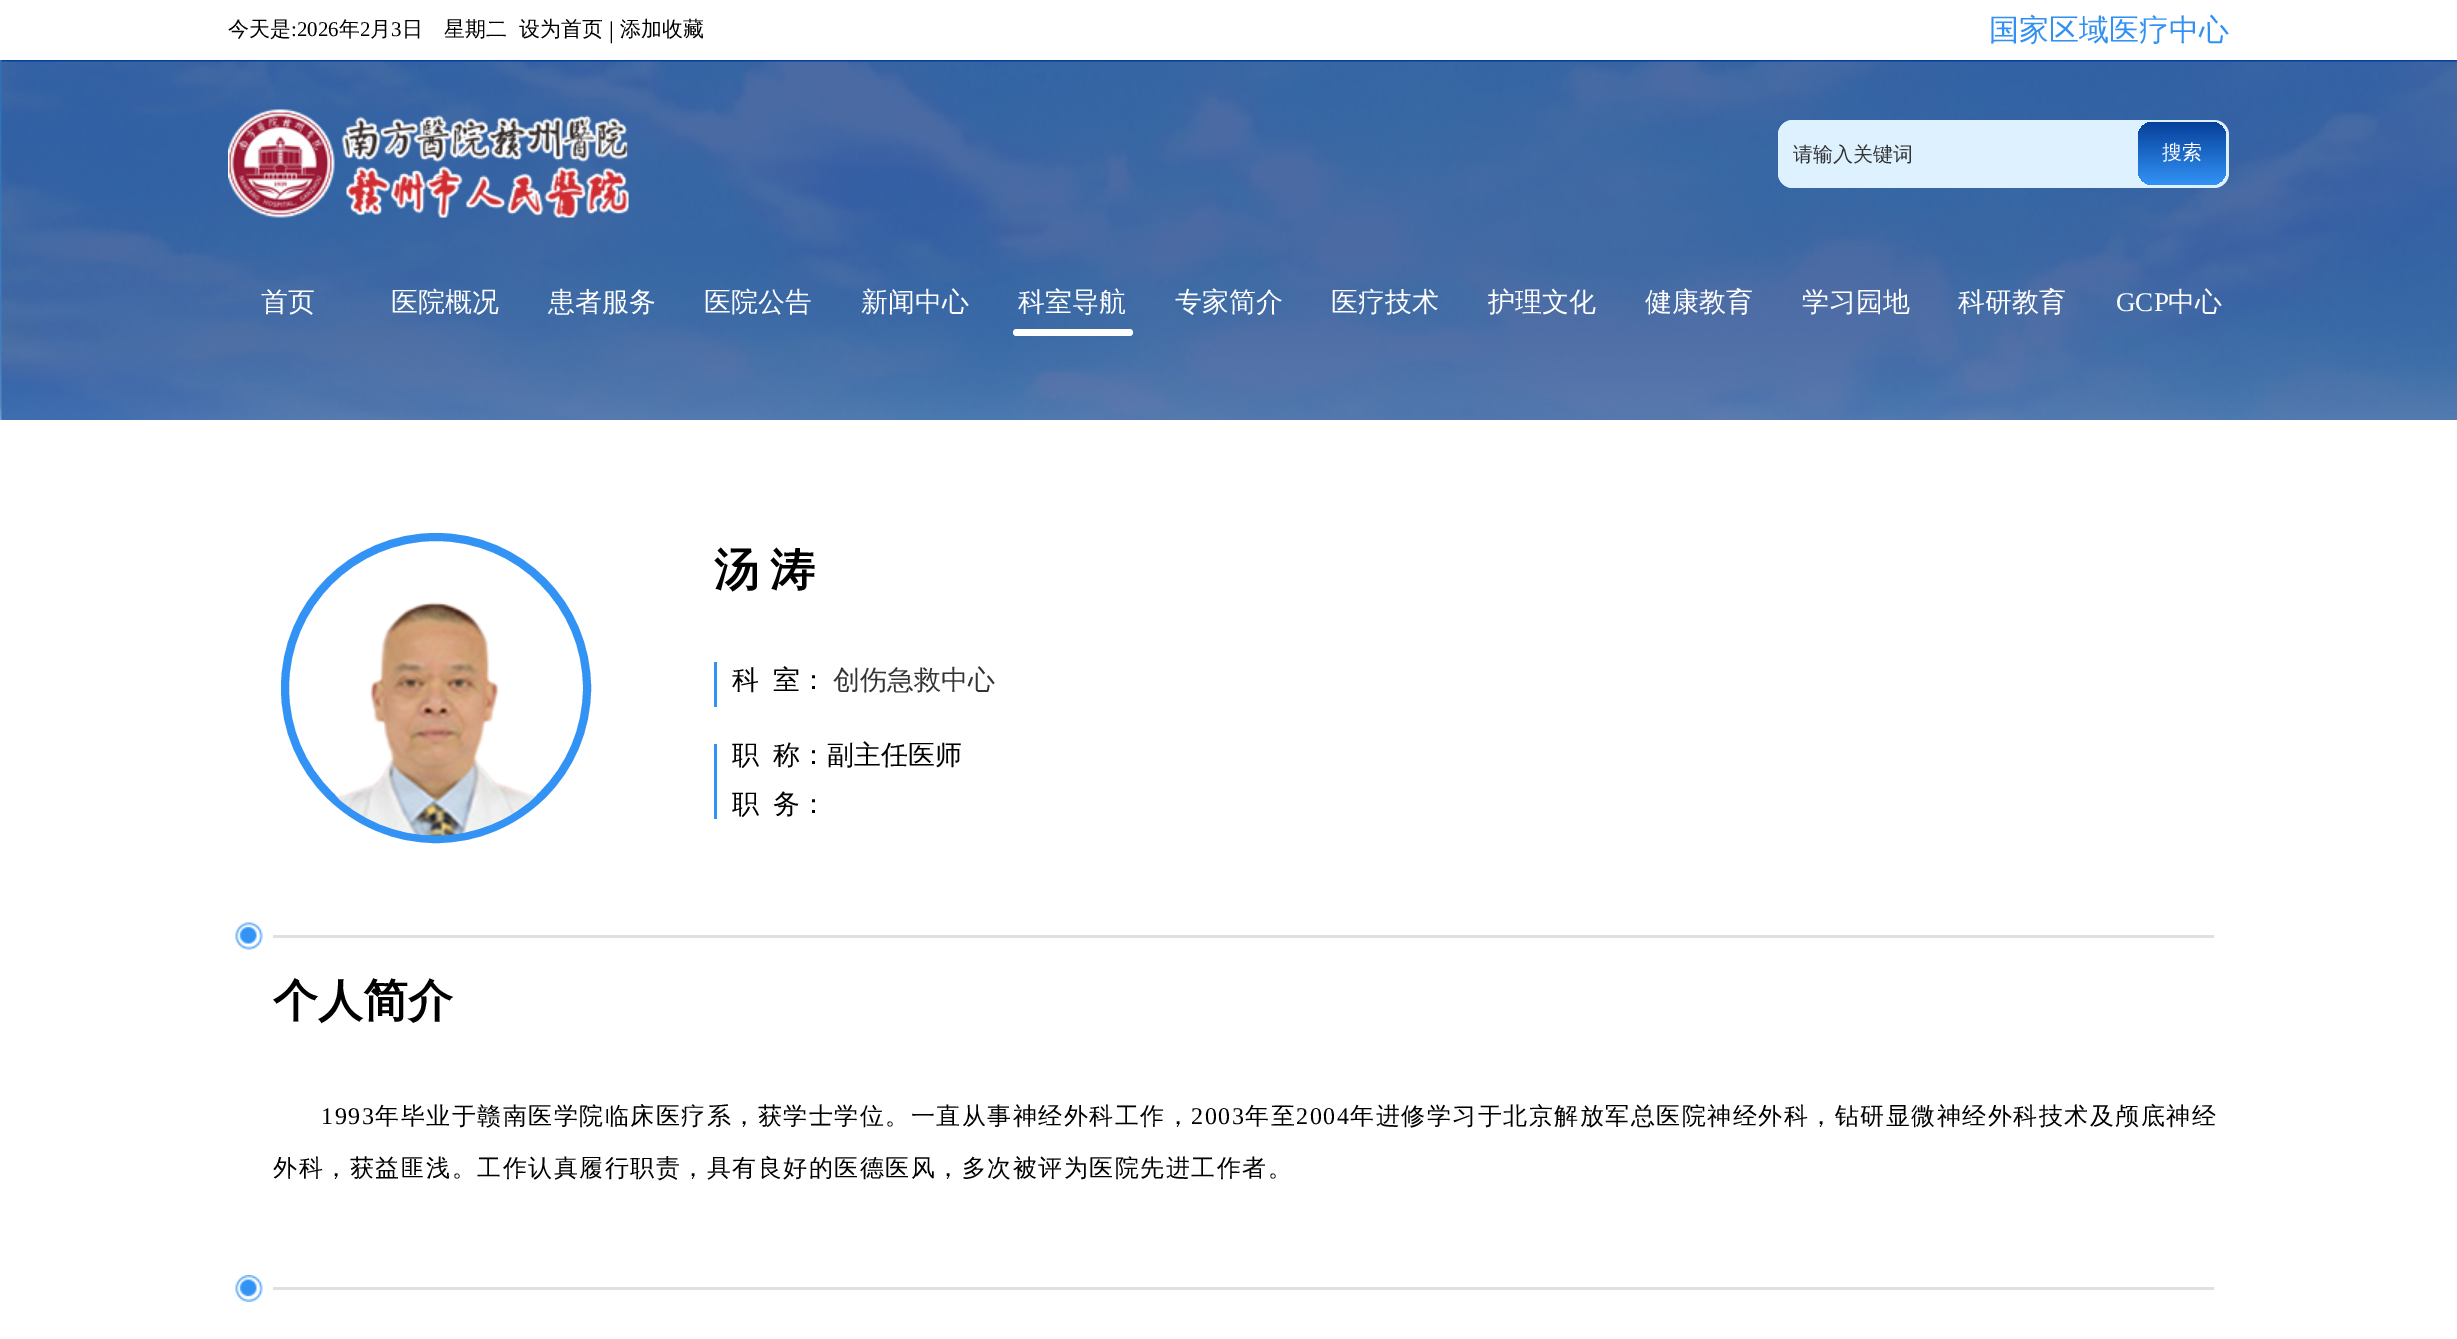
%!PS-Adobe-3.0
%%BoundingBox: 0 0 2457 1339
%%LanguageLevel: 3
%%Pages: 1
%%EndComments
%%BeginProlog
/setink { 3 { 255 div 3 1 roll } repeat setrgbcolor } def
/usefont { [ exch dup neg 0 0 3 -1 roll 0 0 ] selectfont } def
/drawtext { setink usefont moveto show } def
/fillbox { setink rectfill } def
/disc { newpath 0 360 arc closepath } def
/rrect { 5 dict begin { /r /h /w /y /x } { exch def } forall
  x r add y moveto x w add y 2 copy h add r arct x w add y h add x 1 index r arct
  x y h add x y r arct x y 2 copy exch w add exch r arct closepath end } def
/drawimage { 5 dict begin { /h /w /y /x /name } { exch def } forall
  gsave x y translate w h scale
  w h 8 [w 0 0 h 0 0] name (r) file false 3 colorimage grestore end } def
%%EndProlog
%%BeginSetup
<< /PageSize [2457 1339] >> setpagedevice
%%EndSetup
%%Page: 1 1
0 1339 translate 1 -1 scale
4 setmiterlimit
0 0 2457 1339 255 255 255 fillbox
(今天是) 228 36 /WenQuanYiZenHei-Medium 21 0 0 0 drawtext
(:2026) 291 36 /LiberationSerif-Regular 21 0 0 0 drawtext
(年) 339 36 /WenQuanYiZenHei-Medium 21 0 0 0 drawtext
(2) 360 36 /LiberationSerif-Regular 21 0 0 0 drawtext
(月) 370 36 /WenQuanYiZenHei-Medium 21 0 0 0 drawtext
(3) 391 36 /LiberationSerif-Regular 21 0 0 0 drawtext
(日) 402 36 /WenQuanYiZenHei-Medium 21 0 0 0 drawtext
(星期二) 444 36 /WenQuanYiZenHei-Medium 21 0 0 0 drawtext
(设为首页) 519 36 /WenQuanYiZenHei-Medium 21 0 0 0 drawtext
(|) 609 38 /LiberationSerif-Regular 24 0 0 0 drawtext
(添加收藏) 620 36 /WenQuanYiZenHei-Medium 21 0 0 0 drawtext
(国家区域医疗中心) 1989 40 /WenQuanYiZenHei-Medium 30 49 144 242 drawtext
(assets/img1.rgb) 0 60 2457 360 drawimage
(assets/img2.rgb) 228 109 401 109 drawimage
222 241 255 setink
1778 120 451 68 15 rrect fill
1778 120 361 68 15 rrect fill
(请输入关键词) 1793 161 /WenQuanYiZenHei-Medium 20 51 51 51 drawtext
gsave 2138 122 88 63 15 rrect clip newpath
<< /ShadingType 2 /ColorSpace /DeviceRGB /Coords [2182 185 2182 122] /Extend [true true] /Function << /FunctionType 2 /Domain [0 1] /C0 [0.196 0.576 0.961] /C1 [0.024 0.247 0.604] /N 1 >> >> shfill grestore
(搜索) 2162 159 /WenQuanYiZenHei-Medium 20 255 255 255 drawtext
(首页) 261 311 /WenQuanYiZenHei-Medium 27 255 255 255 drawtext
(医院概况) 391 311 /WenQuanYiZenHei-Medium 27 255 255 255 drawtext
(患者服务) 548 311 /WenQuanYiZenHei-Medium 27 255 255 255 drawtext
(医院公告) 704 311 /WenQuanYiZenHei-Medium 27 255 255 255 drawtext
(新闻中心) 861 311 /WenQuanYiZenHei-Medium 27 255 255 255 drawtext
(科室导航) 1018 311 /WenQuanYiZenHei-Medium 27 255 255 255 drawtext
1013 329 120 7 3.5 rrect fill
(专家简介) 1175 311 /WenQuanYiZenHei-Medium 27 255 255 255 drawtext
(医疗技术) 1331 311 /WenQuanYiZenHei-Medium 27 255 255 255 drawtext
(护理文化) 1488 311 /WenQuanYiZenHei-Medium 27 255 255 255 drawtext
(健康教育) 1645 311 /WenQuanYiZenHei-Medium 27 255 255 255 drawtext
(学习园地) 1802 311 /WenQuanYiZenHei-Medium 27 255 255 255 drawtext
(科研教育) 1958 311 /WenQuanYiZenHei-Medium 27 255 255 255 drawtext
(GCP) 2116 311 /LiberationSerif-Regular 27 255 255 255 drawtext
(中心) 2168 311 /WenQuanYiZenHei-Medium 27 255 255 255 drawtext
50 147 245 setink
8 setlinewidth
436 688 151 disc stroke
(assets/img3.rgb) 335 602 202 234 drawimage
/WenQuanYiZenHei-Bold 45 usefont
0 0 0 setink
714 585 moveto -2 0 32 (汤 涛) widthshow
714 662 3 45 50 147 245 fillbox
(科) 732 689 /WenQuanYiZenHei-Medium 27 0 0 0 drawtext
(室：) 773 689 /WenQuanYiZenHei-Medium 27 0 0 0 drawtext
(创伤急救中心) 833 689 /WenQuanYiZenHei-Medium 27 51 51 51 drawtext
714 744 3 75 50 147 245 fillbox
(职) 732 764 /WenQuanYiZenHei-Medium 27 0 0 0 drawtext
(称：副主任医师) 773 764 /WenQuanYiZenHei-Medium 27 0 0 0 drawtext
(职) 732 813 /WenQuanYiZenHei-Medium 27 0 0 0 drawtext
(务：) 773 813 /WenQuanYiZenHei-Medium 27 0 0 0 drawtext
(assets/img4.rgb) 235 922 28 28 drawimage
273 935 1941 3 224 224 227 fillbox
(个人简介) 273 1016 /WenQuanYiZenHei-Bold 45 0 0 0 drawtext
/LiberationSerif-Regular 24 usefont
321 1124 moveto 1.5 0 (1993) ashow
/WenQuanYiZenHei-Medium 24 usefont
375 1124 moveto 1.5 0 (年毕业于赣南医学院临床医疗系，获学士学位。一直从事神经外科工作，) ashow
/LiberationSerif-Regular 24 usefont
1191 1124 moveto 1.5 0 (2003) ashow
/WenQuanYiZenHei-Medium 24 usefont
1245 1124 moveto 1.5 0 (年至) ashow
/LiberationSerif-Regular 24 usefont
1296 1124 moveto 1.5 0 (2004) ashow
/WenQuanYiZenHei-Medium 24 usefont
1350 1124 moveto 1.5 0 (年进修学习于北京解放军总医院神经外科，钻研显微神经外科技术及颅底神经) ashow
273 1176 moveto 1.5 0 (外科，获益匪浅。工作认真履行职责，具有良好的医德医风，多次被评为医院先进工作者。) ashow
(assets/img5.rgb) 235 1275 28 27 drawimage
273 1287 1941 3 224 224 227 fillbox
showpage
%%EOF
